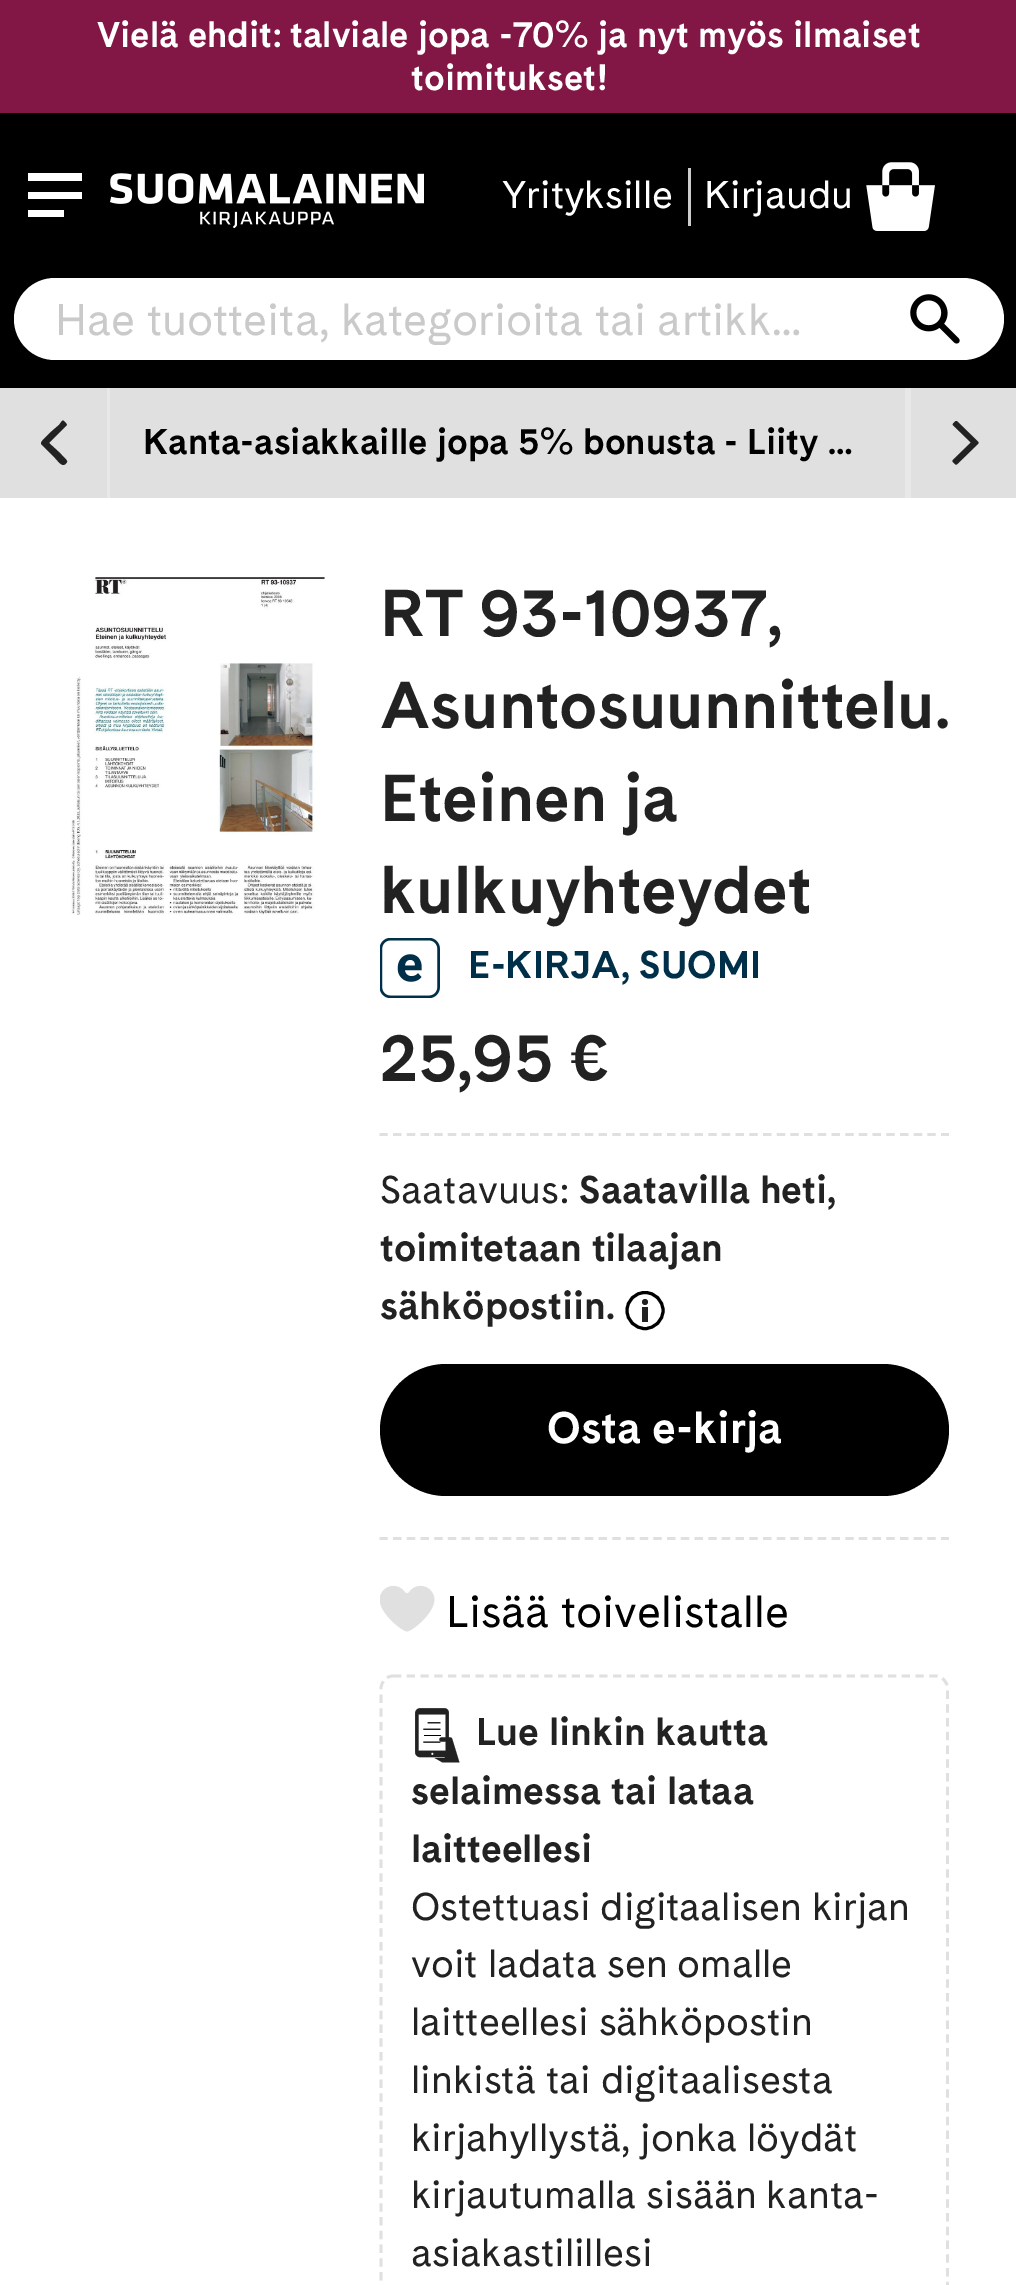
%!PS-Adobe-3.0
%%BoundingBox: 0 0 1016 2285
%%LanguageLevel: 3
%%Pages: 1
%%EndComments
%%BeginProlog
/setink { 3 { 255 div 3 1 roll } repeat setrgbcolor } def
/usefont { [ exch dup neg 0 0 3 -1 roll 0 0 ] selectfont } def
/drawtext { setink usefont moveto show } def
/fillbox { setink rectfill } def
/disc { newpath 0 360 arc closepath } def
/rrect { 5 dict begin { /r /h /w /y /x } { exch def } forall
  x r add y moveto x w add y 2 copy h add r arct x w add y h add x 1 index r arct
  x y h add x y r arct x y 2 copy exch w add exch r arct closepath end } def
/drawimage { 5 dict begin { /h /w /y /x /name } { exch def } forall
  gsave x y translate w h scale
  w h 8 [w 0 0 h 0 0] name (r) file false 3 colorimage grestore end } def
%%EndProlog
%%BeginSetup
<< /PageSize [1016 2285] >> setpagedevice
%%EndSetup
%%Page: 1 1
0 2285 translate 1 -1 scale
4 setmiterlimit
0 0 1016 2285 255 255 255 fillbox
0 0 1016 113 130 23 70 fillbox
(Vielä ehdit: talviale jopa -70% ja nyt myös ilmaiset) 97 47 /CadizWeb-Bold 35.75 255 255 255 drawtext
(toimitukset!) 411 90 /CadizWeb-Bold 35.75 255 255 255 drawtext
0 113 1016 275 0 0 0 fillbox
28 173 54 8 255 255 255 fillbox
28 192 54 7 255 255 255 fillbox
28 210 36 7 255 255 255 fillbox
(assets/img1.rgb) 110 173 314 55 drawimage
688 168 3 58 204 204 204 fillbox
(Yrityksille) 502 208 /CadizWeb-Regular 38.5 255 255 255 drawtext
(Kirjaudu) 704 208 /CadizWeb-Regular 38.5 255 255 255 drawtext
(assets/img2.rgb) 866 162 69 69 drawimage
14 278 990 82 41 rrect fill
(Hae tuotteita, kategorioita tai artikk…) 55 335 /CadizWeb-Regular 44 202 202 202 drawtext
(assets/img3.rgb) 910 294 50 50 drawimage
0 388 1016 110 224 224 224 fillbox
107 388 3 110 232 232 232 fillbox
34 34 34 setink
41 443 moveto 41 441 50 433 52 431 curveto 59 425 lineto 63 420 62 419 66 423 curveto 67 425 lineto 49 443 lineto 61 454 lineto 61 455 68 460 67 462 curveto 63 469 59 462 55 458 curveto 41 444 lineto closepath fill
905 388 6 110 232 232 232 fillbox
(Kanta-asiakkaille jopa 5% bonusta - Liity …) 143 454 /CadizWeb-Bold 35.75 0 0 0 drawtext
(assets/img4.rgb) 952 421 27 44 drawimage
(assets/img5.rgb) 71 577 254 338 drawimage
(RT 93-10937,) 380 636 /CadizWeb-Bold 66 34 34 34 drawtext
(Asuntosuunnittelu.) 380 728 /CadizWeb-Bold 66 34 34 34 drawtext
(Eteinen ja) 380 821 /CadizWeb-Bold 66 34 34 34 drawtext
(kulkuyhteydet) 380 913 /CadizWeb-Bold 66 34 34 34 drawtext
(assets/img6.rgb) 380 938 60 60 drawimage
(E-KIRJA, SUOMI) 468 978 /CadizWeb-Bold 38.5 0 48 73 drawtext
(25,95 €) 380 1081 /CadizWeb-Bold 66 34 34 34 drawtext
224 224 224 setink
2.8 setlinewidth
[8.25 5.45] 0 setdash
379.5 1134.5 moveto 949 1134.5 lineto stroke
(Saatavuus:) 380 1203 /CadizWeb-Regular 38.5 34 34 34 drawtext
(Saatavilla heti,) 579 1203 /CadizWeb-Bold 38.5 34 34 34 drawtext
(toimitetaan tilaajan) 380 1261 /CadizWeb-Bold 38.5 34 34 34 drawtext
(sähköpostiin.) 380 1319 /CadizWeb-Bold 38.5 34 34 34 drawtext
0 0 0 setink
3 setlinewidth
[] 0 setdash
645 1310.5 18 disc stroke
642 1307 6 15 34 34 34 fillbox
645 1302 3 disc fill
0 0 0 setink
380 1364 569 132 66 rrect fill
(Osta e-kirja) 547 1443 /CadizWeb-Bold 44 255 255 255 drawtext
224 224 224 setink
2.8 setlinewidth
[8.25 5.45] 0 setdash
379.5 1538.5 moveto 949 1538.5 lineto stroke
(assets/img7.rgb) 380 1585 55 47 drawimage
(Lisää toivelistalle) 446 1627 /CadizWeb-Regular 44 0 0 0 drawtext
224 224 224 setink
[8.25 5.5] 0 setdash
393 1676 moveto 935 1676 lineto 942 1676 947.5 1681.5 947.5 1688.5 curveto 947.5 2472 lineto 947.5 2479 942 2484.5 935 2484.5 curveto 393 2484.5 lineto 386.5 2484.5 381 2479 381 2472 curveto 381 1688.5 lineto 381 1681.5 386.5 1676 393 1676 curveto closepath stroke
(assets/img8.rgb) 415 1708 45 55 drawimage
(Lue linkin kautta) 476 1745 /CadizWeb-Bold 38.5 34 34 34 drawtext
(selaimessa tai lataa) 411 1804 /CadizWeb-Bold 38.5 34 34 34 drawtext
(laitteellesi) 411 1862 /CadizWeb-Bold 38.5 34 34 34 drawtext
(Ostettuasi digitaalisen kirjan) 411 1920 /CadizWeb-Regular 38.5 34 34 34 drawtext
(voit ladata sen omalle) 411 1977 /CadizWeb-Regular 38.5 34 34 34 drawtext
(laitteellesi sähköpostin) 411 2035 /CadizWeb-Regular 38.5 34 34 34 drawtext
(linkistä tai digitaalisesta) 411 2093 /CadizWeb-Regular 38.5 34 34 34 drawtext
(kirjahyllystä, jonka löydät) 411 2151 /CadizWeb-Regular 38.5 34 34 34 drawtext
(kirjautumalla sisään kanta-) 411 2208 /CadizWeb-Regular 38.5 34 34 34 drawtext
(asiakastilillesi) 411 2266 /CadizWeb-Regular 38.5 34 34 34 drawtext
showpage
%%EOF
